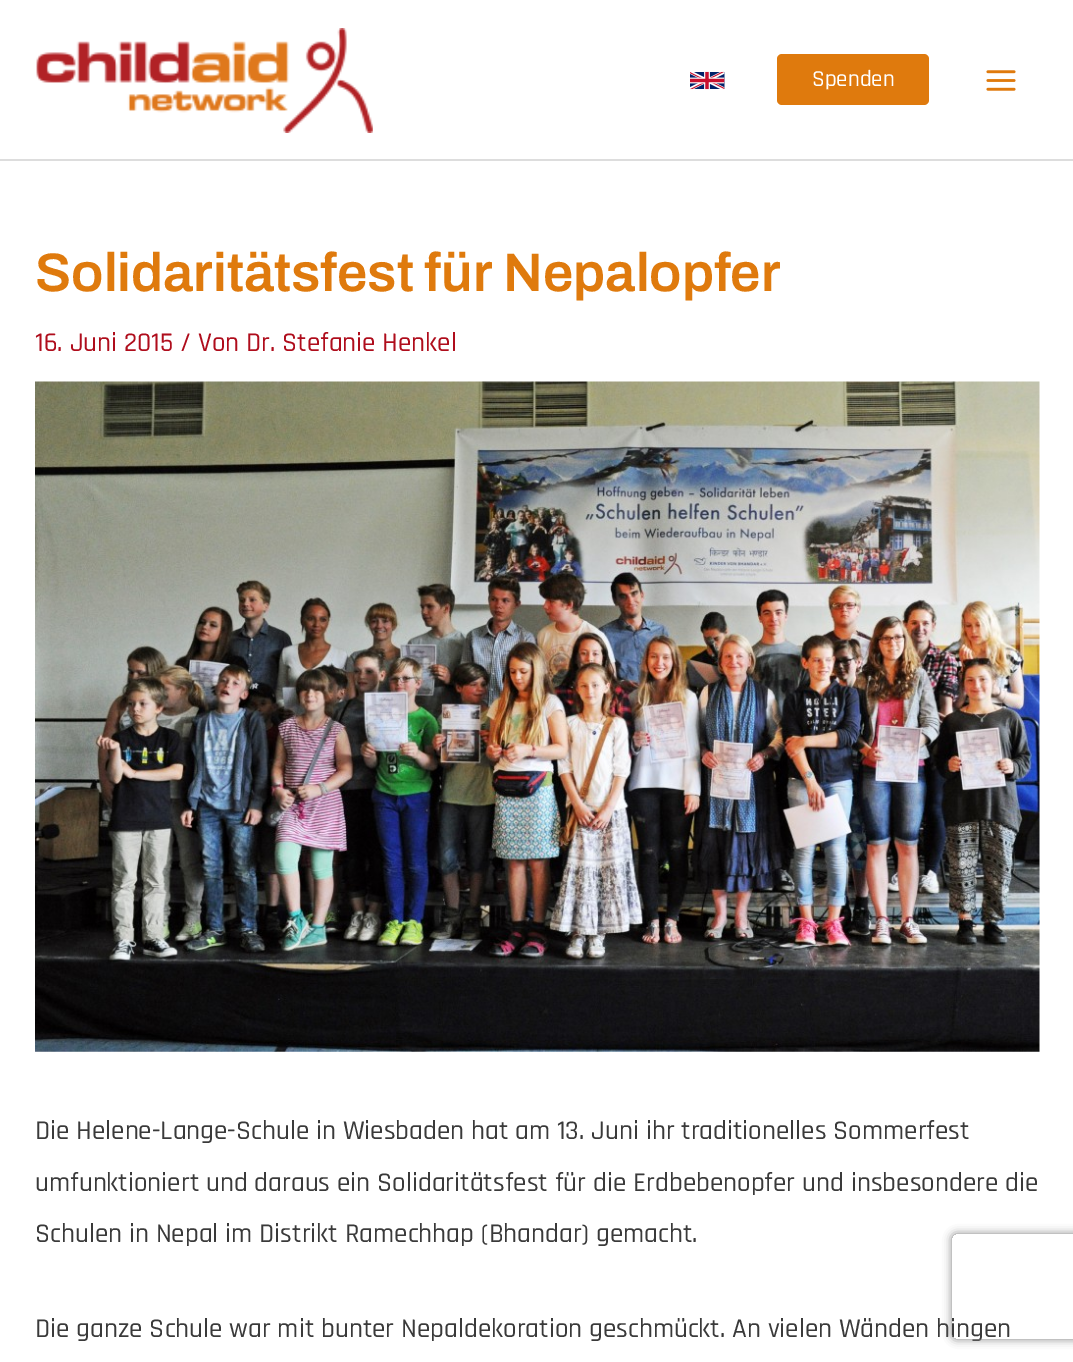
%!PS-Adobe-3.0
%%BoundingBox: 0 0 1073 1362
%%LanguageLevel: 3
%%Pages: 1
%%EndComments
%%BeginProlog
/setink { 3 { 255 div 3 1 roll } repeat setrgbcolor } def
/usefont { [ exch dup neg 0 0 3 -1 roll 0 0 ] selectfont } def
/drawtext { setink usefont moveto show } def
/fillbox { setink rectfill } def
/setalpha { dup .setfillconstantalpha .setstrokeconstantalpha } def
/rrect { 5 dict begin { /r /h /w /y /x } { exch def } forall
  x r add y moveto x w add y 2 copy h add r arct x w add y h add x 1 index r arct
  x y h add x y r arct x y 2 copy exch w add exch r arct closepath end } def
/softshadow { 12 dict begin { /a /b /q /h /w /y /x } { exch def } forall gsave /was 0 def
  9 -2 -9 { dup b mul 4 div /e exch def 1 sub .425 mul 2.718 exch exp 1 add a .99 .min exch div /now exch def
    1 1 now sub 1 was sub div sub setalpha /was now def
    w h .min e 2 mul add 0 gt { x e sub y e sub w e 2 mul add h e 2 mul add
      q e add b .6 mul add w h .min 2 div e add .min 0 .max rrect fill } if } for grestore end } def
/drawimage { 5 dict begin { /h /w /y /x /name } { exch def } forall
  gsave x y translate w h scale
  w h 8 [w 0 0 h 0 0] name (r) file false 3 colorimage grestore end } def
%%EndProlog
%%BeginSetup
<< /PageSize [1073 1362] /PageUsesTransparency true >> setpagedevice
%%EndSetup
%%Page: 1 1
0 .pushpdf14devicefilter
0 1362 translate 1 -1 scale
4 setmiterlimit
0 0 1073 1362 255 255 255 fillbox
0 159 1073 2 221 221 221 fillbox
(assets/img1.rgb) 36 28 337 105 drawimage
(assets/img2.rgb) 690 71 35 19 drawimage
223 122 13 setink
777 54 152 51 5 rrect fill
(Spenden) 812 86 /Rajdhani-Medium 23 255 255 255 drawtext
(assets/img3.rgb) 986 70 30 21 drawimage
(Solidaritätsfest für Nepalopfer) 35 291 /Archivo-SemiBold 54.25 223 122 13 drawtext
(16. Juni 2015 / Von Dr. Stefanie Henkel) 35 351 /Rajdhani-Medium 27.15 175 13 28 drawtext
(assets/img4.rgb) 35 381 1005 671 drawimage
(Die Helene-Lange-Schule in Wiesbaden hat am 13. Juni ihr traditionelles Sommerfest) 35 1139 /Rajdhani-Medium 27.15 58 58 58 drawtext
(umfunktioniert und daraus ein Solidaritätsfest für die Erdbebenopfer und insbesondere die) 35 1191 /Rajdhani-Medium 27.15 58 58 58 drawtext
(Schulen in Nepal im Distrikt Ramechhap \(Bhandar\) gemacht.) 35 1242 /Rajdhani-Medium 27.15 58 58 58 drawtext
(Die ganze Schule war mit bunter Nepaldekoration geschmückt. An vielen Wänden hingen) 35 1337 /Rajdhani-Medium 27.15 58 58 58 drawtext
gsave
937 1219 moveto 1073 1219 lineto 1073 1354 lineto 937 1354 lineto closepath 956 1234 moveto 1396 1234 lineto 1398 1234 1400 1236 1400 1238 curveto 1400 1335 lineto 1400 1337 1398 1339 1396 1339 curveto 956 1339 lineto 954 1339 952 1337 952 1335 curveto 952 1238 lineto 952 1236 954 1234 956 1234 curveto closepath eoclip newpath
128 128 128 setink
952 1234 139 105 4 4.5 1 softshadow
grestore
.poppdf14devicefilter showpage
%%EOF
